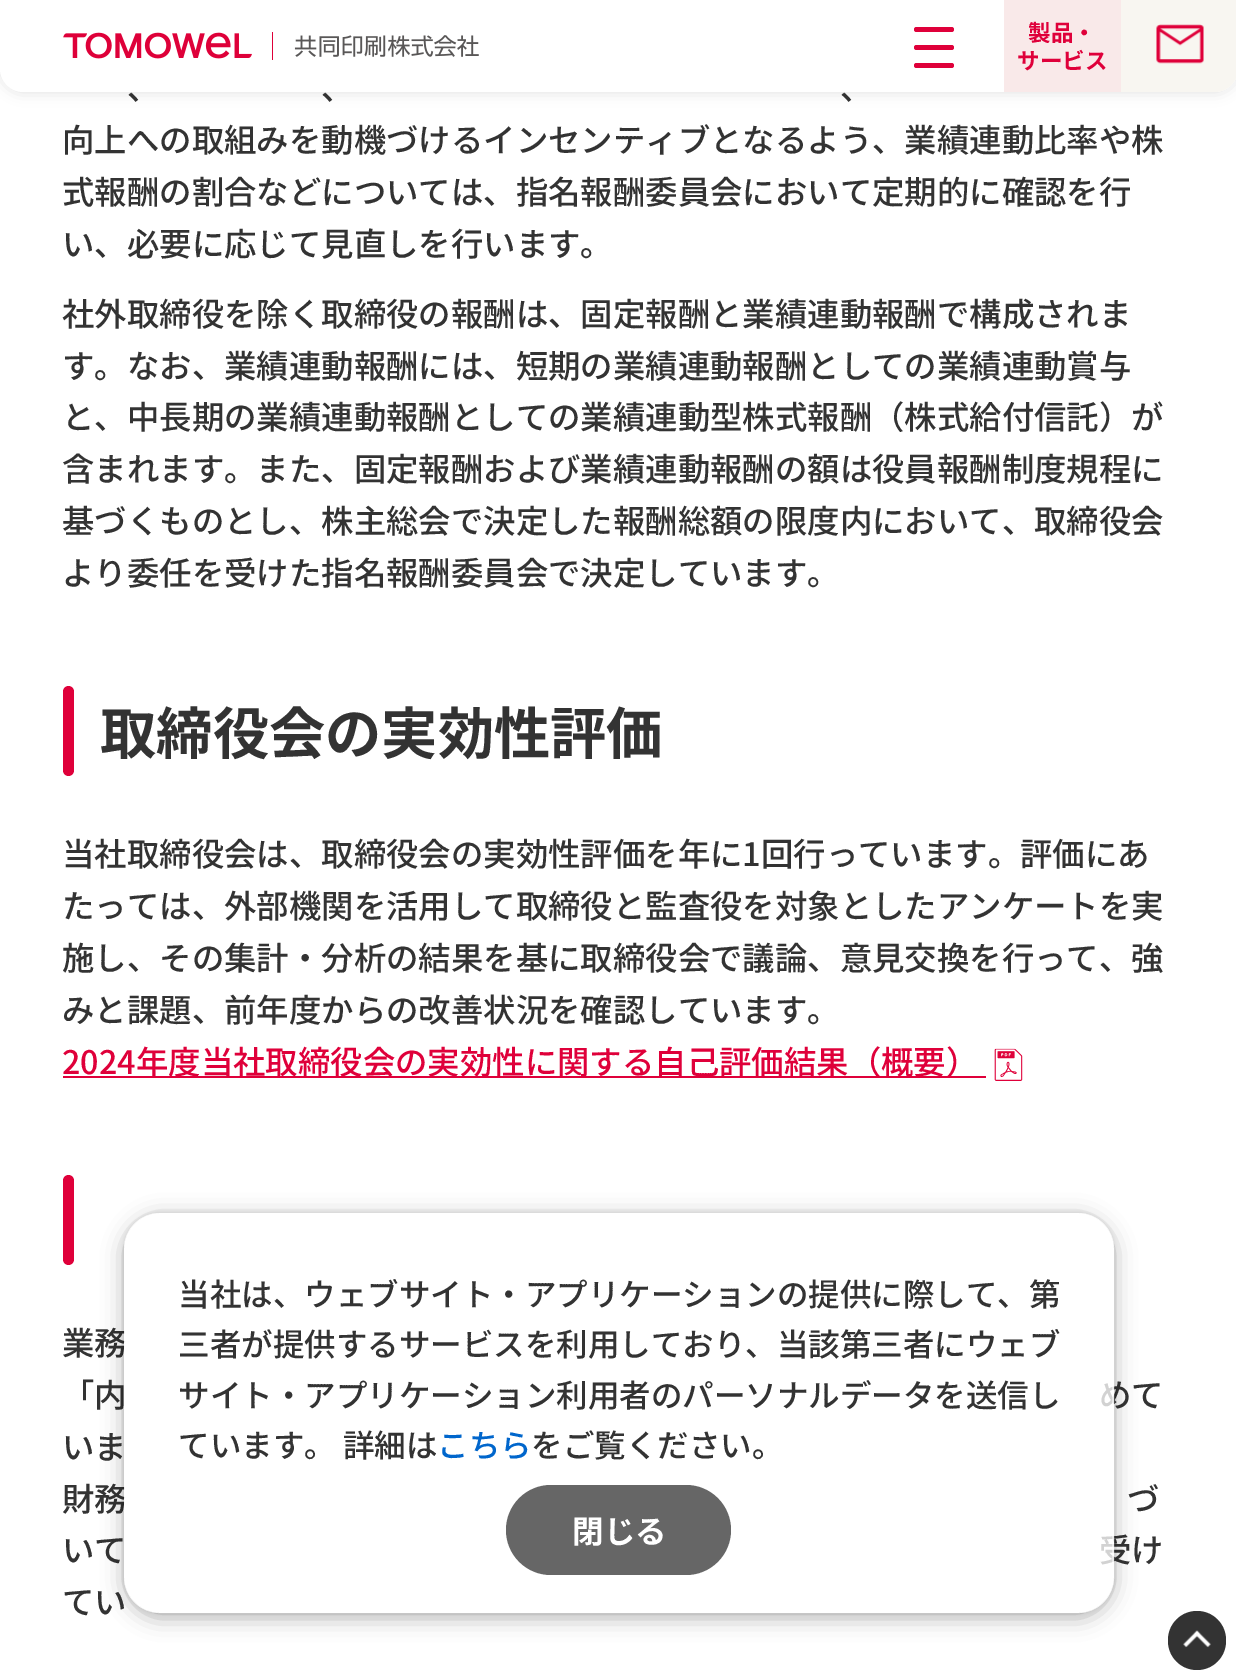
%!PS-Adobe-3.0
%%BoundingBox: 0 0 1236 1680
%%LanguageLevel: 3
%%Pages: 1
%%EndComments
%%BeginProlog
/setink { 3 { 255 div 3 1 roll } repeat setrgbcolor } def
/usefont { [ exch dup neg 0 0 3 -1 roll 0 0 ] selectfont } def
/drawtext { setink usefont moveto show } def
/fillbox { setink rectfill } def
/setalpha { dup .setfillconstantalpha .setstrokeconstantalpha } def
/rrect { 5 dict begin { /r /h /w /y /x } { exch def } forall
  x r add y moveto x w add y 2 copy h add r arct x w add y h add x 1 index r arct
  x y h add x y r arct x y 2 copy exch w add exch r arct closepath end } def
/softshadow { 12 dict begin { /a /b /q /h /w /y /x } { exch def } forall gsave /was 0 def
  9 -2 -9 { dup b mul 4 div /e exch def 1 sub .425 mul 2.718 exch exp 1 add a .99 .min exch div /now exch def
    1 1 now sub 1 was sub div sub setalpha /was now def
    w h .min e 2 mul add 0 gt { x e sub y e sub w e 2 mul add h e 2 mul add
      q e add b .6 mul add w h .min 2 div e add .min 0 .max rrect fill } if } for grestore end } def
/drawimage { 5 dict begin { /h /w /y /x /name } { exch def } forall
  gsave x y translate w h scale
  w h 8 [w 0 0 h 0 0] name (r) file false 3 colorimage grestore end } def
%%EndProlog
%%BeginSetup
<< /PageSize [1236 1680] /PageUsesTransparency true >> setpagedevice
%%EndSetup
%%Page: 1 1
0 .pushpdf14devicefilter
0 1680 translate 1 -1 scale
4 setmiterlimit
0 0 1236 1680 255 255 255 fillbox
0 0 0 setink
0 0 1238 92 23 7 0.12 softshadow
255 255 255 setink
0 0 moveto 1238 0 lineto 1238 69 lineto 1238 81.5 1227.5 92 1215 92 curveto 23 92 lineto 10.5 92 0 81.5 0 69 curveto closepath fill
(assets/img1.rgb) 63 32 416 28 drawimage
223 0 58 setink
914 27 40 5 2.5 rrect fill
914 45 40 5 2.5 rrect fill
914 63 40 5 2.5 rrect fill
1004 0 117 92 249 233 233 fillbox
(製品・) 1028 41 /NotoSansJP-Bold 22.5 223 0 58 drawtext
(サービス) 1017 69 /NotoSansJP-Bold 22.5 223 0 58 drawtext
248 246 241 setink
1121 0 moveto 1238 0 lineto 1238 69 lineto 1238 81.5 1227.5 92 1215 92 curveto 1121 92 lineto closepath fill
(assets/img2.rgb) 1156 24 48 40 drawimage
(、) 127 100 /NotoSansJP-Medium 32.4 51 51 51 drawtext
(、) 321 100 /NotoSansJP-Medium 32.4 51 51 51 drawtext
(、) 840 100 /NotoSansJP-Medium 32.4 51 51 51 drawtext
(向上への取組みを動機づけるインセンティブとなるよう、業績連動比率や株) 62 152 /NotoSansJP-Medium 32.4 51 51 51 drawtext
(式報酬の割合などについては、指名報酬委員会において定期的に確認を行) 62 204 /NotoSansJP-Medium 32.4 51 51 51 drawtext
(い、必要に応じて見直しを行います。) 62 256 /NotoSansJP-Medium 32.4 51 51 51 drawtext
(社外取締役を除く取締役の報酬は、固定報酬と業績連動報酬で構成されま) 62 326 /NotoSansJP-Medium 32.4 51 51 51 drawtext
(す。なお、業績連動報酬には、短期の業績連動報酬としての業績連動賞与) 62 378 /NotoSansJP-Medium 32.4 51 51 51 drawtext
(と、中長期の業績連動報酬としての業績連動型株式報酬（株式給付信託）が) 62 429 /NotoSansJP-Medium 32.4 51 51 51 drawtext
(含まれます。また、固定報酬および業績連動報酬の額は役員報酬制度規程に) 62 481 /NotoSansJP-Medium 32.4 51 51 51 drawtext
(基づくものとし、株主総会で決定した報酬総額の限度内において、取締役会) 62 533 /NotoSansJP-Medium 32.4 51 51 51 drawtext
(より委任を受けた指名報酬委員会で決定しています。) 62 585 /NotoSansJP-Medium 32.4 51 51 51 drawtext
223 0 58 setink
63 686 11 90 5.5 rrect fill
(取締役会の実効性評価) 100 754 /NotoSansJP-Bold 56.25 51 51 51 drawtext
(当社取締役会は、取締役会の実効性評価を年に1回行っています。評価にあ) 62 866 /NotoSansJP-Medium 32.4 51 51 51 drawtext
(たっては、外部機関を活用して取締役と監査役を対象としたアンケートを実) 62 918 /NotoSansJP-Medium 32.4 51 51 51 drawtext
(施し、その集計・分析の結果を基に取締役会で議論、意見交換を行って、強) 62 970 /NotoSansJP-Medium 32.4 51 51 51 drawtext
(みと課題、前年度からの改善状況を確認しています。) 62 1022 /NotoSansJP-Medium 32.4 51 51 51 drawtext
63 1076 923 2 223 0 58 fillbox
(2024年度当社取締役会の実効性に関する自己評価結果（概要）) 62 1074 /NotoSansJP-Medium 32.4 223 0 58 drawtext
(assets/img3.rgb) 994 1048 29 33 drawimage
63 1175 11 90 5.5 rrect fill
(業務) 62 1355 /NotoSansJP-Medium 32.4 51 51 51 drawtext
(「内) 62 1407 /NotoSansJP-Medium 32.4 51 51 51 drawtext
(めて) 1099 1407 /NotoSansJP-Medium 32.4 51 51 51 drawtext
(いま) 62 1459 /NotoSansJP-Medium 32.4 51 51 51 drawtext
(財務) 62 1511 /NotoSansJP-Medium 32.4 51 51 51 drawtext
(づ) 1127 1511 /NotoSansJP-Medium 32.4 51 51 51 drawtext
(いて) 62 1562 /NotoSansJP-Medium 32.4 51 51 51 drawtext
(受け) 1099 1562 /NotoSansJP-Medium 32.4 51 51 51 drawtext
(てい) 62 1614 /NotoSansJP-Medium 32.4 51 51 51 drawtext
gsave
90 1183 moveto 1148 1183 lineto 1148 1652 lineto 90 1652 lineto closepath 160 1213 moveto 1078 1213 lineto 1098 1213 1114 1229 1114 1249 curveto 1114 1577 lineto 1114 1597 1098 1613 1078 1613 curveto 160 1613 lineto 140 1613 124 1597 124 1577 curveto 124 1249 lineto 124 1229 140 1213 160 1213 curveto closepath eoclip newpath
0 0 0 setink
124 1217 990 401 36 11 0.3 softshadow
grestore
gsave
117 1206 moveto 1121 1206 lineto 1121 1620 lineto 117 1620 lineto closepath 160 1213 moveto 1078 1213 lineto 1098 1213 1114 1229 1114 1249 curveto 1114 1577 lineto 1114 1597 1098 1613 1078 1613 curveto 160 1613 lineto 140 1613 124 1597 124 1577 curveto 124 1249 lineto 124 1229 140 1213 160 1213 curveto closepath eoclip newpath
0 0 0 setink
124 1213 990 400 36 2 0.15 softshadow
grestore
0.78 setalpha
255 255 255 setink
124 1213 990 400 36 rrect fill
0.5 setalpha
2 setlinewidth
125 1214 988 398 35 rrect stroke
1 setalpha
(当社は、ウェブサイト・アプリケーションの提供に際して、第) 178 1306 /NotoSansJP-Medium 31.5 51 51 51 drawtext
(三者が提供するサービスを利用しており、当該第三者にウェブ) 178 1356 /NotoSansJP-Medium 31.5 51 51 51 drawtext
(サイト・アプリケーション利用者のパーソナルデータを送信し) 178 1407 /NotoSansJP-Medium 31.5 51 51 51 drawtext
(ています。 詳細は) 178 1457 /NotoSansJP-Medium 31.5 51 51 51 drawtext
(こちら) 437 1457 /NotoSansJP-Medium 31.5 0 102 204 drawtext
(をご覧ください。) 531 1457 /NotoSansJP-Medium 31.5 51 51 51 drawtext
102 102 102 setink
506 1485 225 90 45 rrect fill
(閉じる) 572 1543 /NotoSansJP-Bold 31.5 255 255 255 drawtext
51 51 51 setink
1168 1611 58 59 29 rrect fill
(assets/img4.rgb) 1183 1630 28 18 drawimage
.poppdf14devicefilter showpage
%%EOF
